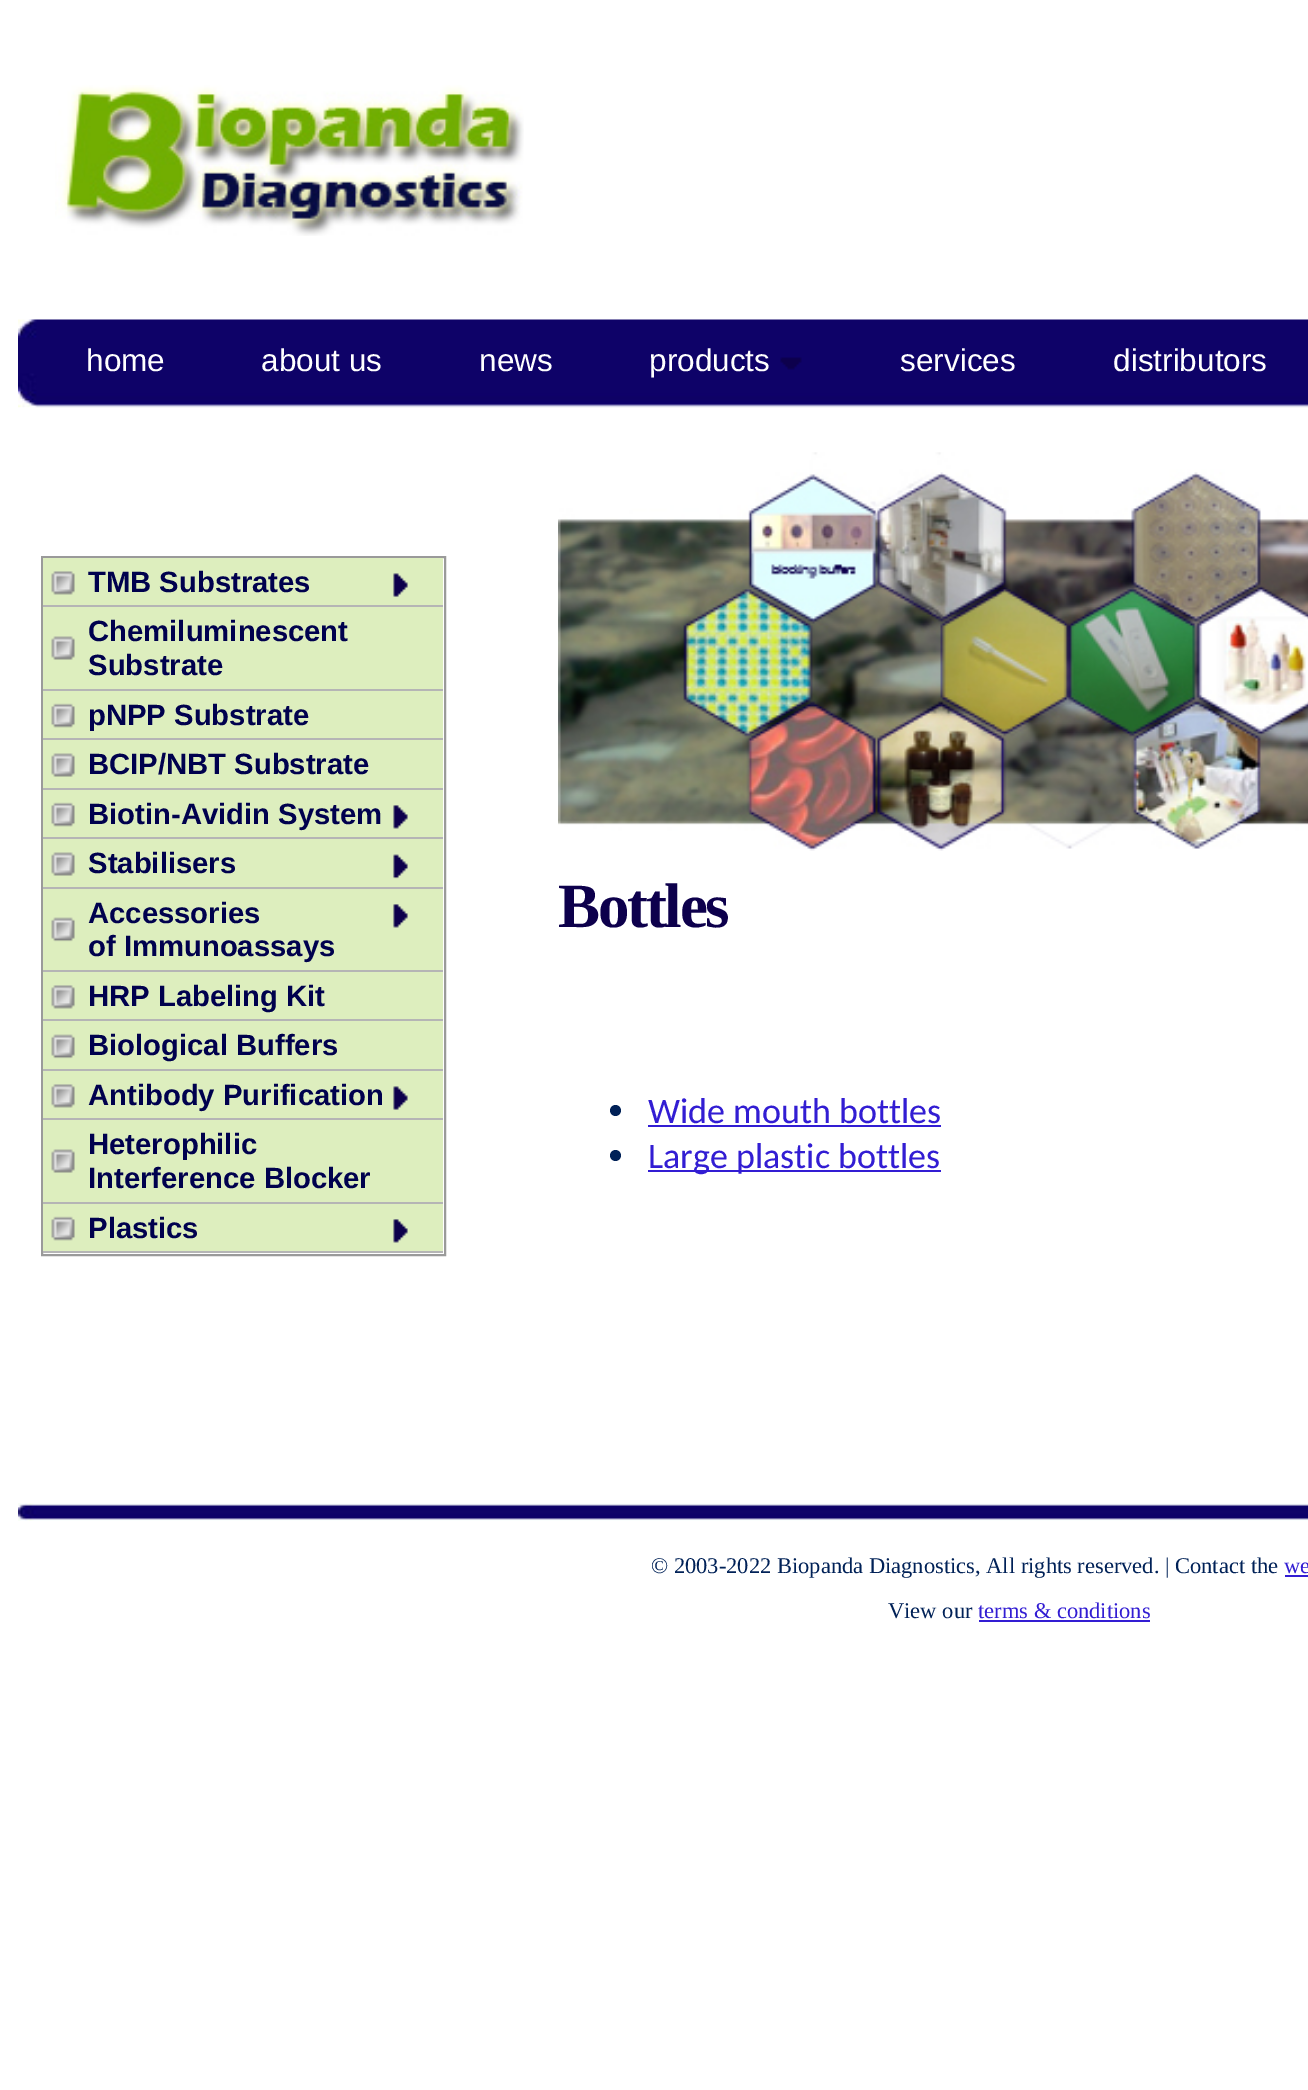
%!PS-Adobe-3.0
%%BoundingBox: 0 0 1308 2090
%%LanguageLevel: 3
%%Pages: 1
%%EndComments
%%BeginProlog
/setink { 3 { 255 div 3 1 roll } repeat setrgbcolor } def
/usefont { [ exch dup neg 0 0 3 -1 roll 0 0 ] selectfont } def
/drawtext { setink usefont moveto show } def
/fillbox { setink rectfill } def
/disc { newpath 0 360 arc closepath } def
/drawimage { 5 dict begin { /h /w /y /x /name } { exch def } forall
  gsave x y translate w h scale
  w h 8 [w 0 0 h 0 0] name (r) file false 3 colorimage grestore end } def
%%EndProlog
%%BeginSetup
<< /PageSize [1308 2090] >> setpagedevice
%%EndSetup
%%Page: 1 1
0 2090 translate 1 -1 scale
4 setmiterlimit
0 0 1308 2090 255 255 255 fillbox
(assets/img1.rgb) 55 85 469 151 drawimage
(assets/img2.rgb) 18 319 1290 89 drawimage
(home) 86 371 /LiberationSans-Regular 31.5 255 255 255 drawtext
(about us) 261 371 /LiberationSans-Regular 31.5 255 255 255 drawtext
(news) 479 371 /LiberationSans-Regular 31.5 255 255 255 drawtext
(products) 649 371 /LiberationSans-Regular 31.5 255 255 255 drawtext
(assets/img3.rgb) 780 357 22 13 drawimage
(services) 900 371 /LiberationSans-Regular 31.5 255 255 255 drawtext
(distributors) 1113 371 /LiberationSans-Regular 31.5 255 255 255 drawtext
(assets/img4.rgb) 18 1503 1290 18 drawimage
154 154 154 setink
2 setlinewidth
42 557 403 698 rectstroke
43 558 400 131 221 238 190 fillbox
(assets/img5.rgb) 51 571 24 24 drawimage
43 605 400 2 181 181 181 fillbox
(TMB Substrates) 88 592 /LiberationSans-Bold 29.25 0 1 78 drawtext
(assets/img6.rgb) 393 573 15 24 drawimage
(assets/img7.rgb) 51 636 24 24 drawimage
43 689 400 2 181 181 181 fillbox
(Chemiluminescent) 88 641 /LiberationSans-Bold 29.25 0 1 78 drawtext
(Substrate) 88 675 /LiberationSans-Bold 29.25 0 1 78 drawtext
43 691 400 47 221 238 190 fillbox
(assets/img8.rgb) 51 703 24 25 drawimage
43 738 400 2 181 181 181 fillbox
(pNPP Substrate) 88 725 /LiberationSans-Bold 29.25 0 1 78 drawtext
43 740 400 48 221 238 190 fillbox
(assets/img7.rgb) 51 753 24 24 drawimage
43 788 400 2 181 181 181 fillbox
(BCIP/NBT Substrate) 88 774 /LiberationSans-Bold 29.25 0 1 78 drawtext
43 790 400 47 221 238 190 fillbox
(assets/img8.rgb) 51 802 24 25 drawimage
43 837 400 2 181 181 181 fillbox
(Biotin-Avidin System) 88 824 /LiberationSans-Bold 29.25 0 1 78 drawtext
(assets/img9.rgb) 393 805 15 24 drawimage
43 839 400 48 221 238 190 fillbox
(assets/img7.rgb) 51 852 24 24 drawimage
43 887 400 2 181 181 181 fillbox
(Stabilisers) 88 873 /LiberationSans-Bold 29.25 0 1 78 drawtext
(assets/img10.rgb) 393 854 15 25 drawimage
43 889 400 81 221 238 190 fillbox
(assets/img11.rgb) 51 917 24 25 drawimage
43 970 400 2 181 181 181 fillbox
(Accessories) 88 923 /LiberationSans-Bold 29.25 0 1 78 drawtext
(assets/img9.rgb) 393 904 15 24 drawimage
(of Immunoassays) 88 956 /LiberationSans-Bold 29.25 0 1 78 drawtext
43 972 400 97 221 238 190 fillbox
(assets/img12.rgb) 51 985 24 24 drawimage
43 1019 400 2 181 181 181 fillbox
(HRP Labeling Kit) 88 1006 /LiberationSans-Bold 29.25 0 1 78 drawtext
(assets/img11.rgb) 51 1034 24 25 drawimage
43 1069 400 2 181 181 181 fillbox
(Biological Buffers) 88 1055 /LiberationSans-Bold 29.25 0 1 78 drawtext
43 1071 400 131 221 238 190 fillbox
(assets/img12.rgb) 51 1084 24 24 drawimage
43 1118 400 2 181 181 181 fillbox
(Antibody Purification) 88 1105 /LiberationSans-Bold 29.25 0 1 78 drawtext
(assets/img13.rgb) 393 1086 15 24 drawimage
(assets/img14.rgb) 51 1149 24 24 drawimage
43 1202 400 2 181 181 181 fillbox
(Heterophilic) 88 1154 /LiberationSans-Bold 29.25 0 1 78 drawtext
(Interference Blocker) 88 1188 /LiberationSans-Bold 29.25 0 1 78 drawtext
43 1204 400 47 221 238 190 fillbox
(assets/img8.rgb) 51 1216 24 25 drawimage
43 1251 400 2 181 181 181 fillbox
(Plastics) 88 1238 /LiberationSans-Bold 29.25 0 1 78 drawtext
(assets/img9.rgb) 393 1219 15 24 drawimage
(assets/img15.rgb) 558 452 750 399 drawimage
/LiberationSerif-Bold 63 usefont
13 0 76 setink
558 927 moveto -2.25 0 (Bottles) ashow
0 33 87 setink
615.5 1110.5 5.5 disc fill
(Wide mouth bottles) 648 1123 /Carlito-Regular 36 50 29 211 drawtext
648 1125 293 2 50 29 211 fillbox
0 33 87 setink
615.5 1155.5 5.5 disc fill
648 1170 293 2 50 29 211 fillbox
(Large plastic bottles) 648 1168 /Carlito-Regular 36 50 29 211 drawtext
(© 2003-2022 Biopanda Diagnostics, All rights reserved. | Contact the) 651 1573 /LiberationSerif-Regular 22.5 0 33 87 drawtext
(we) 1284 1573 /LiberationSerif-Regular 22.5 50 29 211 drawtext
1285 1575 23 2 50 29 211 fillbox
(View our) 888 1618 /LiberationSerif-Regular 22.5 0 33 87 drawtext
(terms & conditions) 978 1618 /LiberationSerif-Regular 22.5 50 29 211 drawtext
979 1620 171 2 50 29 211 fillbox
showpage
%%EOF
